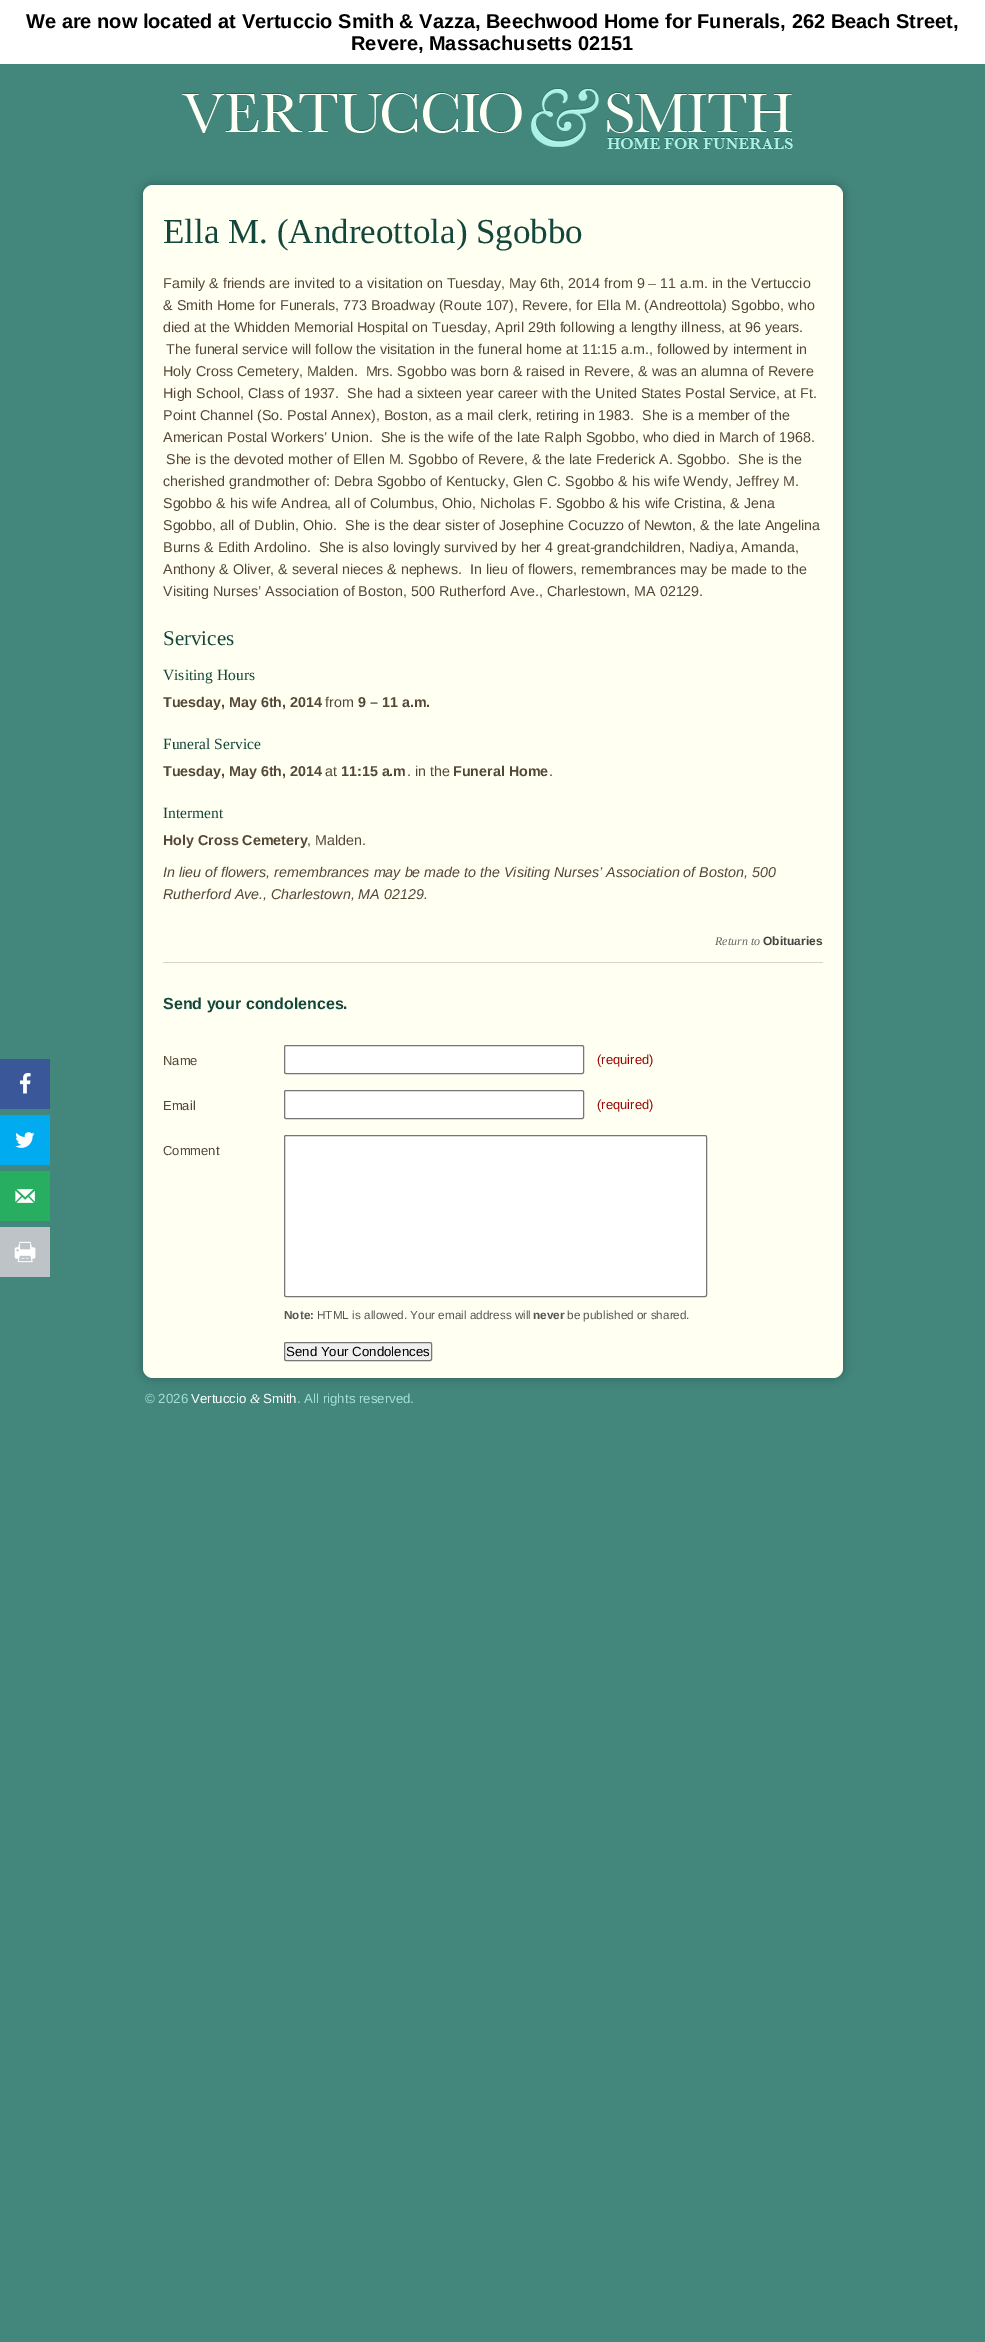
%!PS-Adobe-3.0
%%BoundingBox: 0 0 985 2342
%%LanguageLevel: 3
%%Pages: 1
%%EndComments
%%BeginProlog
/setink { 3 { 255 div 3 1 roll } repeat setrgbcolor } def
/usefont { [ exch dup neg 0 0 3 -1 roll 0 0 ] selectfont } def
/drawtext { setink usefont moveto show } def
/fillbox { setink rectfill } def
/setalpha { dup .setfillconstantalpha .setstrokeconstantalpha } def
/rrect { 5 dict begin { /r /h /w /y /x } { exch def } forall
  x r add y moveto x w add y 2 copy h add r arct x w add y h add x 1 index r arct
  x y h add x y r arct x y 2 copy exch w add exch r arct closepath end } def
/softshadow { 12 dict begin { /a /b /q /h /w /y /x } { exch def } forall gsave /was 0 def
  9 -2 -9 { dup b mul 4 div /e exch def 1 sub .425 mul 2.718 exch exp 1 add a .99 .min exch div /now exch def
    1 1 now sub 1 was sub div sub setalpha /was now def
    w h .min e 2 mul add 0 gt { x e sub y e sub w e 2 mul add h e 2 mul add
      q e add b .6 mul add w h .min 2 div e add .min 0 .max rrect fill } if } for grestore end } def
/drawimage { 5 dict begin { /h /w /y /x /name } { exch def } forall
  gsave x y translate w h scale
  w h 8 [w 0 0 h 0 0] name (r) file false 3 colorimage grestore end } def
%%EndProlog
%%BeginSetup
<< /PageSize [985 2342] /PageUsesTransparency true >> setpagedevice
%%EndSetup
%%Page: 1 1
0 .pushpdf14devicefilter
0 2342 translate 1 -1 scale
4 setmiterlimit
0 0 985 2342 67 134 124 fillbox
0 0 985 64 255 255 255 fillbox
(We are now located at Vertuccio Smith & Vazza, Beechwood Home for Funerals, 262 Beach Street,) 26 28 /LiberationSans-Bold 20 0 0 0 drawtext
(Revere, Massachusetts 02151) 351 50 /LiberationSans-Bold 20 0 0 0 drawtext
0 1059 50 50 58 87 154 fillbox
(assets/img1.rgb) 19 1073 12 21 drawimage
0 1115 50 50 0 171 240 fillbox
(assets/img2.rgb) 15 1132 20 16 drawimage
0 1171 50 50 39 174 96 fillbox
(assets/img3.rgb) 15 1189 20 14 drawimage
0 1227 50 50 189 195 199 fillbox
(assets/img4.rgb) 14 1241 22 22 drawimage
(assets/img5.rgb) 182 88 611 61 drawimage
0 0 0 setink
143 185 700 1193 10 5 0.3 softshadow
255 255 242 setink
143 185 700 1193 10 rrect fill
163 962 660 1 217 212 199 fillbox
(Ella M. \(Andreottola\) Sgobbo) 163 243 /LiberationSerif-Regular 35 20 71 60 drawtext
(Family & friends are invited to a visitation on Tuesday, May 6th, 2014 from 9 – 11 a.m. in the Vertuccio) 163 288 /LiberationSans-Regular 14.3 85 70 53 drawtext
(& Smith Home for Funerals, 773 Broadway \(Route 107\), Revere, for Ella M. \(Andreottola\) Sgobbo, who) 163 310 /LiberationSans-Regular 14.3 85 70 53 drawtext
(died at the Whidden Memorial Hospital on Tuesday, April 29th following a lengthy illness, at 96 years.) 163 332 /LiberationSans-Regular 14.3 85 70 53 drawtext
(The funeral service will follow the visitation in the funeral home at 11:15 a.m., followed by interment in) 166 354 /LiberationSans-Regular 14.3 85 70 53 drawtext
(Holy Cross Cemetery, Malden.  Mrs. Sgobbo was born & raised in Revere, & was an alumna of Revere) 163 376 /LiberationSans-Regular 14.3 85 70 53 drawtext
(High School, Class of 1937.  She had a sixteen year career with the United States Postal Service, at Ft.) 163 398 /LiberationSans-Regular 14.3 85 70 53 drawtext
(Point Channel \(So. Postal Annex\), Boston, as a mail clerk, retiring in 1983.  She is a member of the) 163 420 /LiberationSans-Regular 14.3 85 70 53 drawtext
(American Postal Workers’ Union.  She is the wife of the late Ralph Sgobbo, who died in March of 1968.) 163 442 /LiberationSans-Regular 14.3 85 70 53 drawtext
(She is the devoted mother of Ellen M. Sgobbo of Revere, & the late Frederick A. Sgobbo.  She is the) 166 464 /LiberationSans-Regular 14.3 85 70 53 drawtext
(cherished grandmother of: Debra Sgobbo of Kentucky, Glen C. Sgobbo & his wife Wendy, Jeffrey M.) 163 486 /LiberationSans-Regular 14.3 85 70 53 drawtext
(Sgobbo & his wife Andrea, all of Columbus, Ohio, Nicholas F. Sgobbo & his wife Cristina, & Jena) 163 508 /LiberationSans-Regular 14.3 85 70 53 drawtext
(Sgobbo, all of Dublin, Ohio.  She is the dear sister of Josephine Cocuzzo of Newton, & the late Angelina) 163 530 /LiberationSans-Regular 14.3 85 70 53 drawtext
(Burns & Edith Ardolino.  She is also lovingly survived by her 4 great-grandchildren, Nadiya, Amanda,) 163 552 /LiberationSans-Regular 14.3 85 70 53 drawtext
(Anthony & Oliver, & several nieces & nephews.  In lieu of flowers, remembrances may be made to the) 163 574 /LiberationSans-Regular 14.3 85 70 53 drawtext
(Visiting Nurses’ Association of Boston, 500 Rutherford Ave., Charlestown, MA 02129.) 163 596 /LiberationSans-Regular 14.3 85 70 53 drawtext
(Services) 163 645 /LiberationSerif-Regular 21 20 71 60 drawtext
(Visiting Hours) 163 680 /LiberationSerif-Regular 15.5 20 71 60 drawtext
(Tuesday, May 6th, 2014) 163 707 /LiberationSans-Bold 14.3 85 70 53 drawtext
(from) 325 707 /LiberationSans-Regular 14.3 85 70 53 drawtext
(9 – 11 a.m.) 358 707 /LiberationSans-Bold 14.3 85 70 53 drawtext
(Funeral Service) 163 749 /LiberationSerif-Regular 15.5 20 71 60 drawtext
(Tuesday, May 6th, 2014) 163 776 /LiberationSans-Bold 14.3 85 70 53 drawtext
(at) 325 776 /LiberationSans-Regular 14.3 85 70 53 drawtext
(11:15 a.m) 341 776 /LiberationSans-Bold 14.3 85 70 53 drawtext
(. in the) 407 776 /LiberationSans-Regular 14.3 85 70 53 drawtext
(Funeral Home) 453 776 /LiberationSans-Bold 14.3 85 70 53 drawtext
(.) 549 776 /LiberationSans-Regular 14.3 85 70 53 drawtext
(Interment) 163 818 /LiberationSerif-Regular 15.5 20 71 60 drawtext
(Holy Cross Cemetery) 163 845 /LiberationSans-Bold 14.3 85 70 53 drawtext
(, Malden.) 307 845 /LiberationSans-Regular 14.3 85 70 53 drawtext
(In lieu of flowers, remembrances may be made to the Visiting Nurses’ Association of Boston, 500) 163 877 /LiberationSans-Italic 14.3 85 70 53 drawtext
(Rutherford Ave., Charlestown, MA 02129.) 163 899 /LiberationSans-Italic 14.3 85 70 53 drawtext
(Return to) 715 945 /LiberationSerif-Italic 12 102 102 102 drawtext
(Obituaries) 763 945 /LiberationSans-Bold 12 68 68 68 drawtext
(Send your condolences.) 163 1009 /LiberationSans-Bold 16 20 71 60 drawtext
(Name) 163 1065 /LiberationSans-Regular 13 85 70 53 drawtext
255 255 255 setink
284.5 1045.5 299 28 1.5 rrect gsave fill grestore
118 118 118 setink
stroke
(\(required\)) 597 1064 /LiberationSans-Regular 13 153 0 0 drawtext
(Email) 163 1110 /LiberationSans-Regular 13 85 70 53 drawtext
255 255 255 setink
284.5 1090.5 299 28 1.5 rrect gsave fill grestore
118 118 118 setink
stroke
(\(required\)) 597 1109 /LiberationSans-Regular 13 153 0 0 drawtext
(Comment) 163 1155 /LiberationSans-Regular 13 85 70 53 drawtext
255 255 255 setink
284.5 1135.5 422 161 1.5 rrect gsave fill grestore
118 118 118 setink
stroke
(Note:) 284 1319 /LiberationSans-Bold 11.75 85 85 85 drawtext
(HTML is allowed. Your email address will) 317 1319 /LiberationSans-Regular 11.75 85 85 85 drawtext
(never) 533 1319 /LiberationSans-Bold 11.75 85 85 85 drawtext
(be published or shared.) 567 1319 /LiberationSans-Regular 11.75 85 85 85 drawtext
239 239 239 setink
284.5 1342.5 147 18 1.5 rrect gsave fill grestore
118 118 118 setink
stroke
(Send Your Condolences) 286 1356 /LiberationSans-Regular 13.25 0 0 0 drawtext
(© 2026) 145 1403 /LiberationSans-Regular 13.25 164 223 214 drawtext
(Vertuccio) 191 1403 /LiberationSans-Regular 13.25 255 255 255 drawtext
(&) 250 1403 /LiberationSerif-Italic 13.25 255 255 255 drawtext
(Smith) 263 1403 /LiberationSans-Regular 13.25 255 255 255 drawtext
(. All rights reserved.) 297 1403 /LiberationSans-Regular 13.25 164 223 214 drawtext
.poppdf14devicefilter showpage
%%EOF
